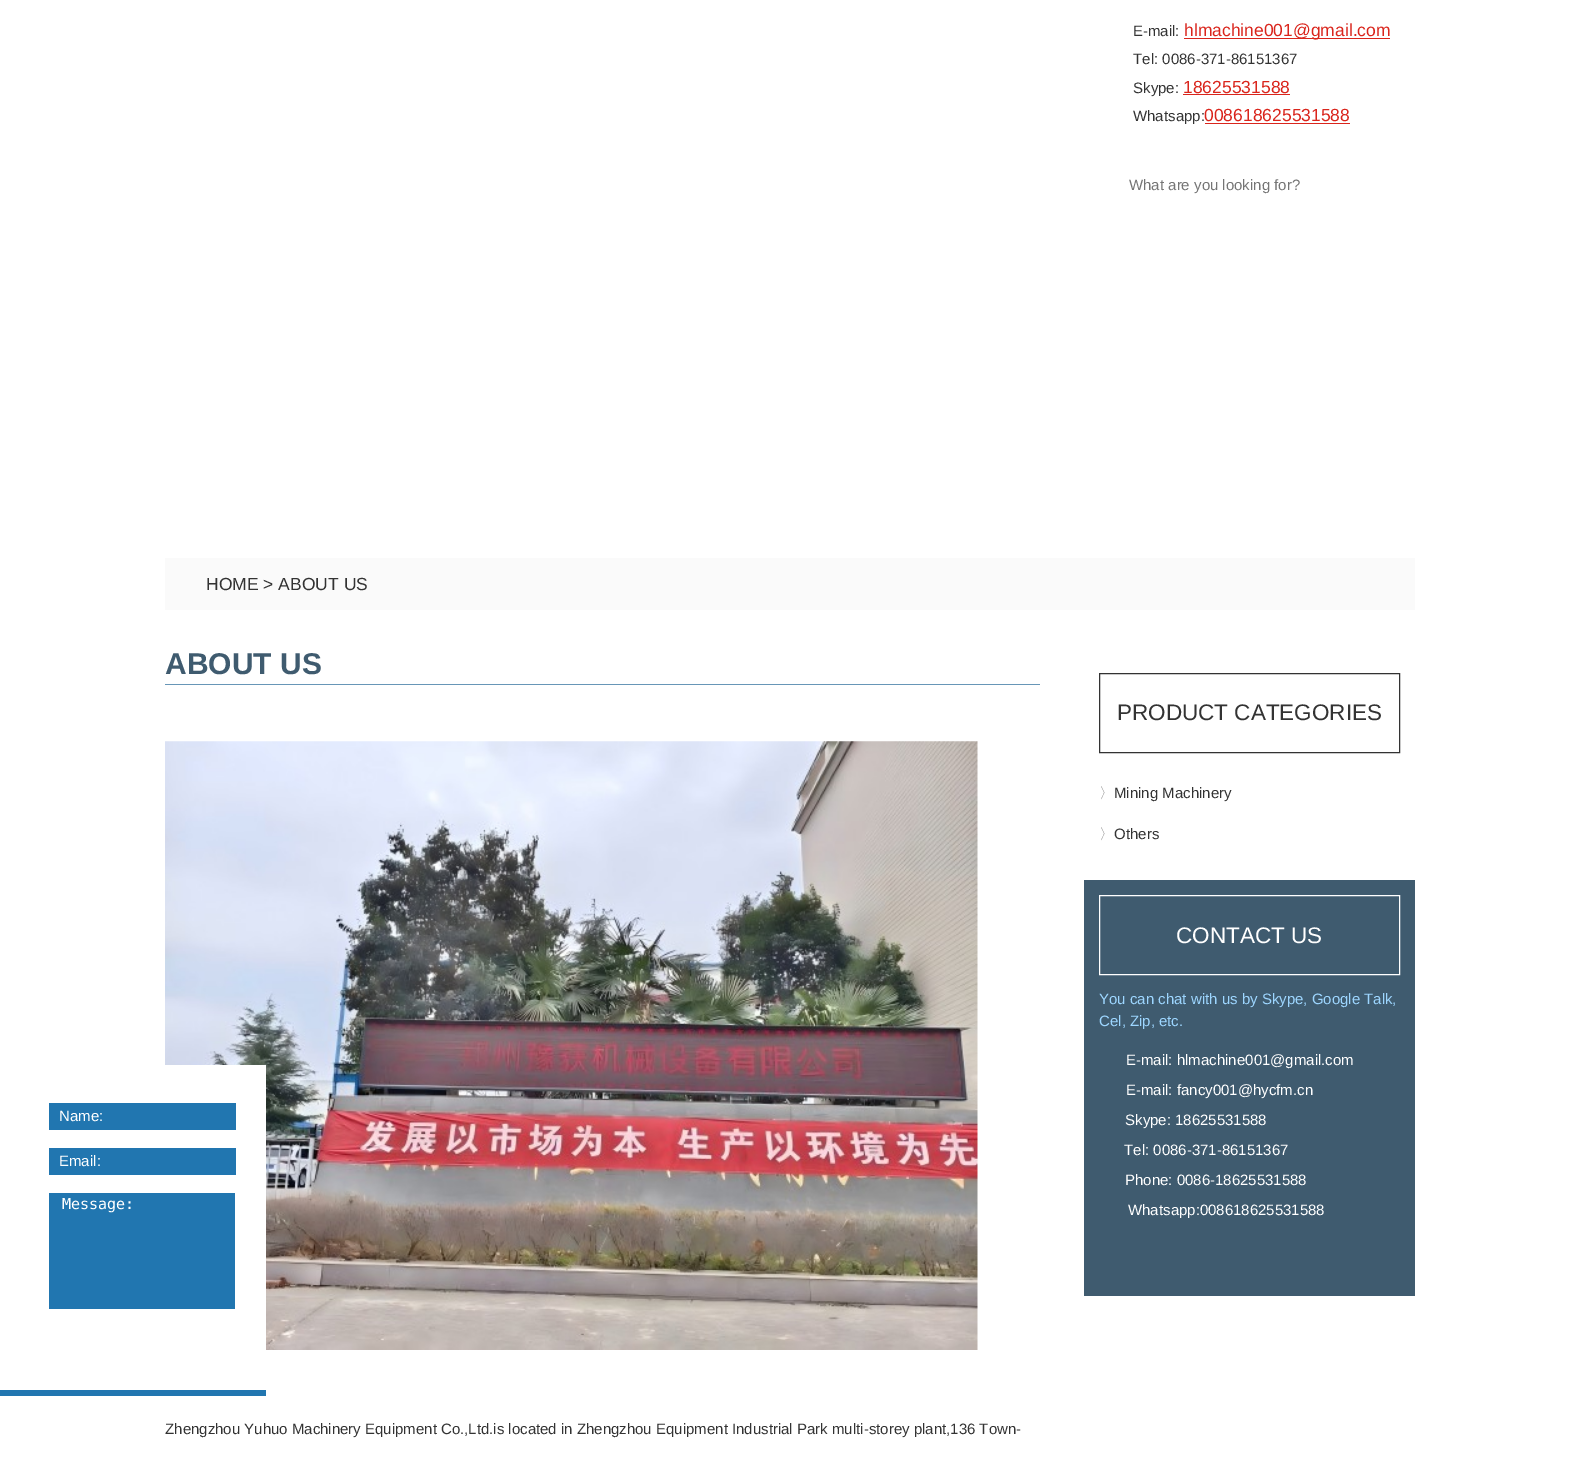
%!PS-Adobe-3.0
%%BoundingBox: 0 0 1580 1458
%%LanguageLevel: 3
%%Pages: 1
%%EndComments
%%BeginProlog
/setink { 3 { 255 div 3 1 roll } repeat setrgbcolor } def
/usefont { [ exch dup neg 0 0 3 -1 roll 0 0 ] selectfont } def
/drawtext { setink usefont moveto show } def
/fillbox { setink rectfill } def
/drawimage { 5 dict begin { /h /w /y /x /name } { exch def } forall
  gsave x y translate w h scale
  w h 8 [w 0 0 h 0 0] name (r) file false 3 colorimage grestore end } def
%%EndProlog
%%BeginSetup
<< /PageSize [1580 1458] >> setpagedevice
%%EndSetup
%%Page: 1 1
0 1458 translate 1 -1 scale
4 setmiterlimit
0 0 1580 1458 255 255 255 fillbox
(E-mail:) 1133 36 /LiberationSans-Regular 15 51 51 51 drawtext
1184 38 206 1 218 37 28 fillbox
(hlmachine001@gmail.com) 1184 36 /LiberationSans-Regular 17.5 218 37 28 drawtext
(Tel: 0086-371-86151367) 1133 64 /LiberationSans-Regular 15 51 51 51 drawtext
(Skype:) 1133 93 /LiberationSans-Regular 15 51 51 51 drawtext
(18625531588) 1183 93 /LiberationSans-Regular 17.5 218 37 28 drawtext
1183 94 107 1 218 37 28 fillbox
(Whatsapp:) 1133 121 /LiberationSans-Regular 15 51 51 51 drawtext
(008618625531588) 1204 121 /LiberationSans-Regular 17.5 218 37 28 drawtext
1205 123 145 1 218 37 28 fillbox
(What are you looking for?) 1129 190 /LiberationSans-Regular 15 117 117 117 drawtext
(assets/img1.rgb) 165 741 813 609 drawimage
165 1065 101 285 255 255 255 fillbox
0 1390 266 6 33 118 176 fillbox
49 1103 187 27 33 118 176 fillbox
(Name:) 59 1121 /LiberationSans-Regular 15 255 255 255 drawtext
49 1148 187 27 33 118 176 fillbox
(Email:) 59 1166 /LiberationSans-Regular 15 255 255 255 drawtext
49 1193 186 116 33 118 176 fillbox
(Message:) 62 1209 /DejaVuSansMono-Regular 15 255 255 255 drawtext
165 558 1250 52 250 250 250 fillbox
(HOME > ABOUT US) 206 590 /LiberationSans-Regular 17.5 51 51 51 drawtext
165 684 875 1 103 150 183 fillbox
(ABOUT US) 165 674 /LiberationSans-Bold 30 63 91 111 drawtext
(Zhengzhou Yuhuo Machinery Equipment Co.,Ltd.is located in Zhengzhou Equipment Industrial Park multi-storey plant,136 Town-) 165 1434 /LiberationSans-Regular 15 51 51 51 drawtext
1099.5 673.5 300 79 rectstroke
(PRODUCT CATEGORIES) 1117 720 /LiberationSans-Regular 22.5 51 51 51 drawtext
(〉) 1099 798 /WenQuanYiZenHei-Medium 15 153 153 153 drawtext
(Mining Machinery) 1114 798 /LiberationSans-Regular 15 51 51 51 drawtext
(〉) 1099 839 /WenQuanYiZenHei-Medium 15 153 153 153 drawtext
(Others) 1114 839 /LiberationSans-Regular 15 51 51 51 drawtext
1084 880 331 416 63 91 111 fillbox
255 255 255 setink
1099.5 895.5 300 79 rectstroke
(CONTACT US) 1176 943 /LiberationSans-Regular 22.5 255 255 255 drawtext
(You can chat with us by Skype, Google Talk,) 1099 1004 /LiberationSans-Regular 15 157 214 255 drawtext
(Cel, Zip, etc.) 1099 1026 /LiberationSans-Regular 15 157 214 255 drawtext
(E-mail: hlmachine001@gmail.com) 1126 1065 /LiberationSans-Regular 15 255 255 255 drawtext
(E-mail: fancy001@hycfm.cn) 1126 1095 /LiberationSans-Regular 15 255 255 255 drawtext
(Skype: 18625531588) 1125 1125 /LiberationSans-Regular 15 255 255 255 drawtext
(Tel: 0086-371-86151367) 1124 1155 /LiberationSans-Regular 15 255 255 255 drawtext
(Phone: 0086-18625531588) 1125 1185 /LiberationSans-Regular 15 255 255 255 drawtext
(Whatsapp:008618625531588) 1128 1215 /LiberationSans-Regular 15 255 255 255 drawtext
showpage
%%EOF
